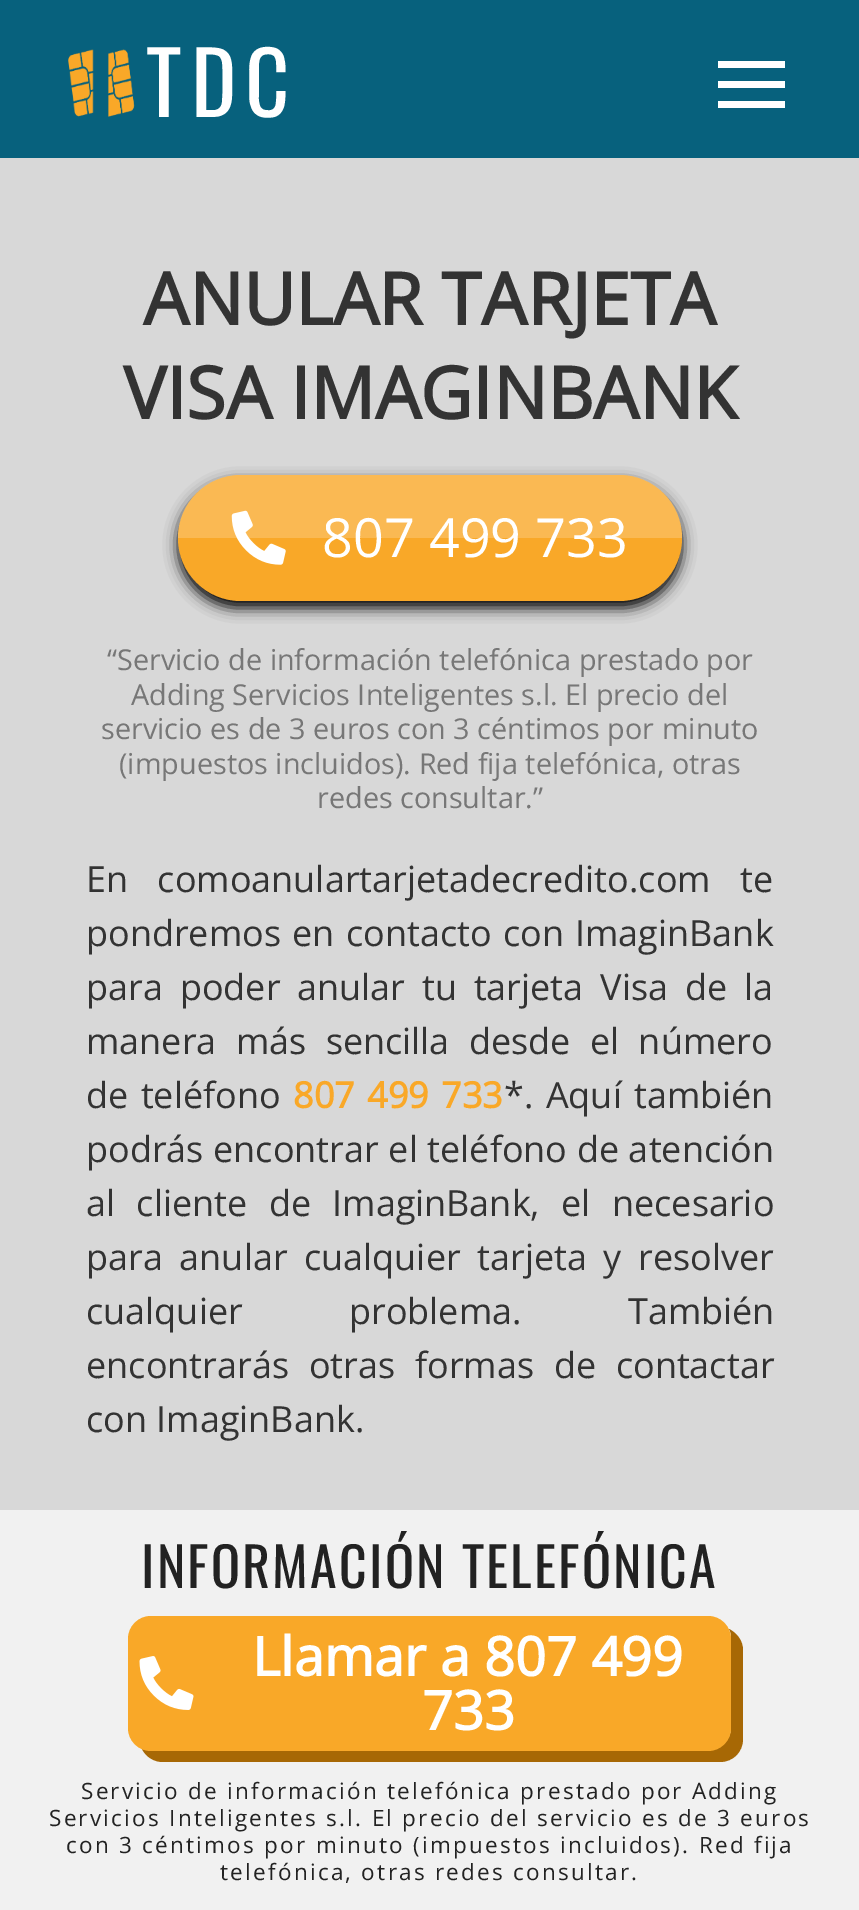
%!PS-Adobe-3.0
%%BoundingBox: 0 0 859 1910
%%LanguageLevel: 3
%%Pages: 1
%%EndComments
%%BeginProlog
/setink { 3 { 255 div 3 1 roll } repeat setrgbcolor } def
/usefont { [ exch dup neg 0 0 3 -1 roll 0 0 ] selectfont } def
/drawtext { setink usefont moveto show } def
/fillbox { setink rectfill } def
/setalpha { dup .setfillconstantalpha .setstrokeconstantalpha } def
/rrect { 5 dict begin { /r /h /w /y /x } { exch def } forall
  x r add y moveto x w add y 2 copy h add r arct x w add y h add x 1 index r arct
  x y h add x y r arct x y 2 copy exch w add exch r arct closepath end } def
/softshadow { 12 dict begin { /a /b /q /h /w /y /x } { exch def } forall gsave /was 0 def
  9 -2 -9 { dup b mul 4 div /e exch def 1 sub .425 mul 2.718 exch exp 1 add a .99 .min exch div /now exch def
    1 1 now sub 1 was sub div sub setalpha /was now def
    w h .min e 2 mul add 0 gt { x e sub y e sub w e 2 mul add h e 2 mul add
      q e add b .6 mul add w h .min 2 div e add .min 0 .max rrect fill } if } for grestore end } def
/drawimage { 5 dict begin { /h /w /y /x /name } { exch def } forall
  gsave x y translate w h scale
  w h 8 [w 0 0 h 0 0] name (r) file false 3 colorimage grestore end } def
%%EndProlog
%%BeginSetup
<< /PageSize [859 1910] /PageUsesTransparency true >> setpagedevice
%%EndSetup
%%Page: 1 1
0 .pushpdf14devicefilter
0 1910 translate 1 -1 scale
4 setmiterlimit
0 0 859 1910 216 216 216 fillbox
0 0 859 158 7 97 125 fillbox
(assets/img1.rgb) 68 49 67 68 drawimage
/Oswald-Regular 86 usefont
255 255 255 setink
146 117 moveto 9 0 (TDC) ashow
718 81 67 7 255 255 255 fillbox
718 61 67 7 255 255 255 fillbox
718 101 67 7 255 255 255 fillbox
(ANULAR TARJETA) 143 325 /OpenSans-Bold 72 51 51 51 drawtext
(VISA IMAGINBANK) 123 419 /OpenSans-Bold 72 51 51 51 drawtext
0 0 0 setink
178 482 504 126 63 7 1 softshadow
249 168 40 setink
178 475 504 126 63 rrect fill
0.2 setalpha
255 255 255 setink
241 475 moveto 619 475 lineto 654 475 682 503 682 538 curveto 178 538 lineto 178 503 206 475 241 475 curveto closepath fill
1 setalpha
(assets/img2.rgb) 231 510 55 55 drawimage
(807 499 733) 322 557 /OpenSans-Regular 54 255 255 255 drawtext
(“Servicio de información telefónica prestado por) 107 670 /OpenSans-Regular 28.8 119 119 119 drawtext
(Adding Servicios Inteligentes s.l. El precio del) 131 705 /OpenSans-Regular 28.8 119 119 119 drawtext
(servicio es de 3 euros con 3 céntimos por minuto) 101 739 /OpenSans-Regular 28.8 119 119 119 drawtext
(\(impuestos incluidos\). Red fija telefónica, otras) 119 774 /OpenSans-Regular 28.8 119 119 119 drawtext
(redes consultar.”) 317 808 /OpenSans-Regular 28.8 119 119 119 drawtext
/OpenSans-Regular 36 usefont
51 51 51 setink
86 892 moveto 20 0 32 (En comoanulartarjetadecredito.com te) widthshow
86 946 moveto 2 0 32 (pondremos en contacto con ImaginBank) widthshow
86 1000 moveto 7.5 0 32 (para poder anular tu tarjeta Visa de la) widthshow
86 1054 moveto 10 0 32 (manera más sencilla desde el número) widthshow
86 1108 moveto 3 0 32 (de teléfono) widthshow
/OpenSans-Bold 36 usefont
249 168 40 setink
293 1108 moveto 3 0 32 (807 499 733) widthshow
/OpenSans-Regular 36 usefont
51 51 51 setink
504 1108 moveto 3 0 32 (*. Aquí también) widthshow
86 1162 moveto 0.25 0 32 (podrás encontrar el teléfono de atención) widthshow
86 1216 moveto 12 0 32 (al cliente de ImaginBank, el necesario) widthshow
86 1270 moveto 7.25 0 32 (para anular cualquier tarjeta y resolver) widthshow
86 1324 moveto 97 0 32 (cualquier problema. También) widthshow
86 1378 moveto 10.5 0 32 (encontrarás otras formas de contactar) widthshow
(con ImaginBank.) 86 1432 /OpenSans-Regular 36 51 51 51 drawtext
0 1510 859 400 241 241 241 fillbox
/Oswald-Regular 54 usefont
34 34 34 setink
141 1588 moveto 2.25 0 (INFORMACIÓN TELEFÓNICA) ashow
167 104 5 setink
142 1749 moveto 146 1757 154 1762 163 1762 curveto 720 1762 lineto 733 1762 743 1752 743 1739 curveto 743 1650 lineto 743 1641 737 1633 729 1629 curveto 731 1632 731 1635 731 1638 curveto 731 1728 lineto 731 1740 721 1750 709 1750 curveto 151 1750 lineto 148 1750 145 1750 142 1749 curveto closepath fill
249 168 40 setink
128 1616 603 135 23 rrect fill
(assets/img3.rgb) 139 1656 55 54 drawimage
(Llamar a 807 499) 252 1676 /OpenSans-Bold 54 255 255 255 drawtext
(733) 422 1730 /OpenSans-Bold 54 255 255 255 drawtext
/OpenSans-Regular 22.5 usefont
34 34 34 setink
81 1799 moveto 2.25 0 (Servicio de información telefónica prestado por Adding) ashow
49 1826 moveto 2.25 0 (Servicios Inteligentes s.l. El precio del servicio es de 3 euros) ashow
66 1853 moveto 2.25 0 (con 3 céntimos por minuto \(impuestos incluidos\). Red fija) ashow
220 1880 moveto 2.25 0 (telefónica, otras redes consultar.) ashow
.poppdf14devicefilter showpage
%%EOF
